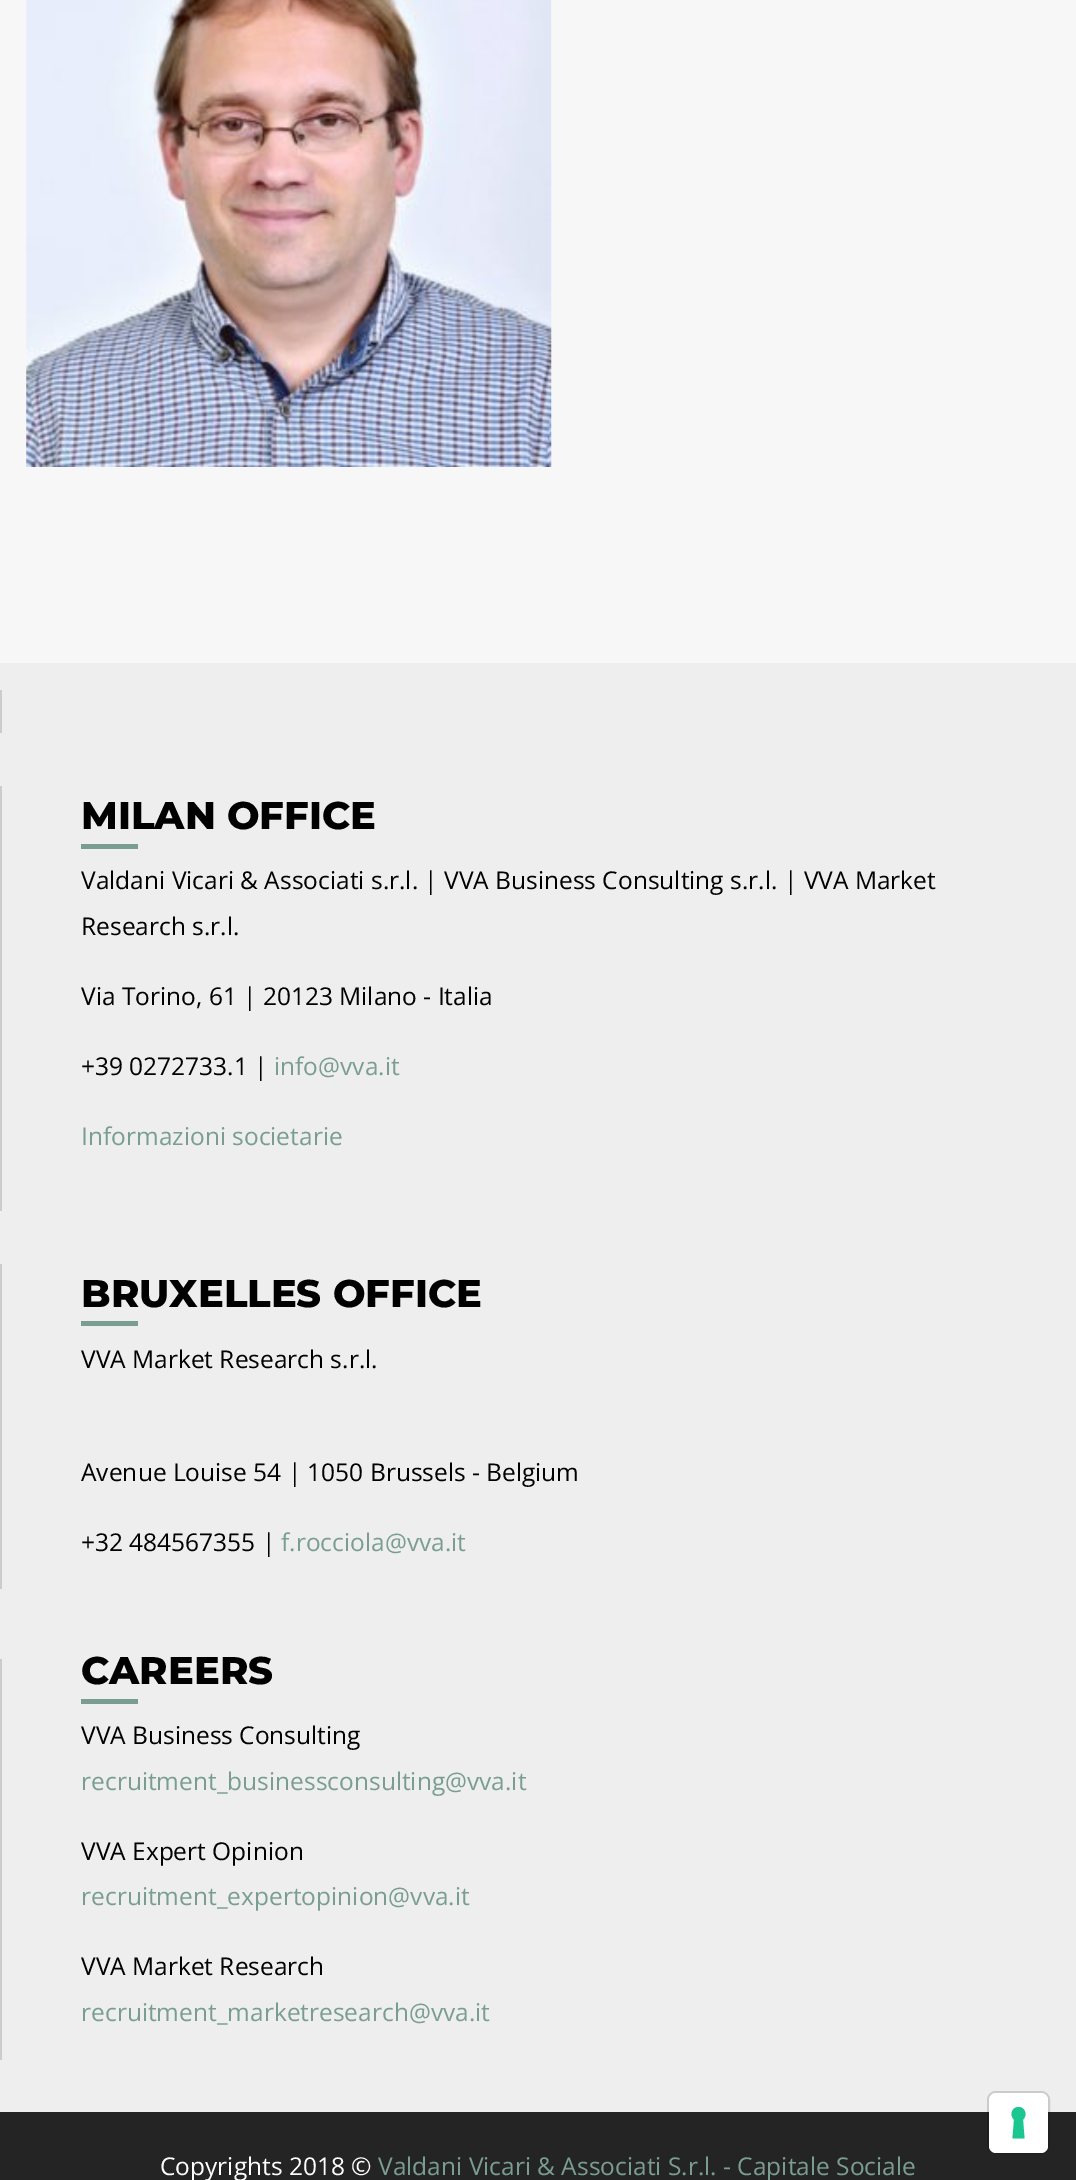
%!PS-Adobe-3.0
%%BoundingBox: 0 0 1076 2180
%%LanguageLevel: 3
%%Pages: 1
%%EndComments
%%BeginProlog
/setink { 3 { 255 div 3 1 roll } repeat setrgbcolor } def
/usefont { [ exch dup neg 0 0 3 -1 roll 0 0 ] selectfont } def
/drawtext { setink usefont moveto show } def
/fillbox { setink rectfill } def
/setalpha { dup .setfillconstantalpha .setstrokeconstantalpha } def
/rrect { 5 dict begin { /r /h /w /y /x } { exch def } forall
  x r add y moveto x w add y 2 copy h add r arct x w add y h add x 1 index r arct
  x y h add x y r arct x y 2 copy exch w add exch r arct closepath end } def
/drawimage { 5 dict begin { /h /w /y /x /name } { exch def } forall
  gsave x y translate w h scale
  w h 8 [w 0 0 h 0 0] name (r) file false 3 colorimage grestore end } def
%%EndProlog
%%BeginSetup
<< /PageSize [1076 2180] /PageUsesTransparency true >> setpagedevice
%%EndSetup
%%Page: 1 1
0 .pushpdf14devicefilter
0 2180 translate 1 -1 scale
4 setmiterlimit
0 0 1076 2180 247 247 247 fillbox
(assets/img1.rgb) 26 0 526 467 drawimage
0 663 1076 1449 238 238 238 fillbox
0 690 2 43 204 204 204 fillbox
0 786 2 425 204 204 204 fillbox
(MILAN OFFICE) 81 829 /Montserrat-ExtraBold 38.5 0 0 0 drawtext
81 844 57 5 121 158 145 fillbox
(Valdani Vicari & Associati s.r.l. | VVA Business Consulting s.r.l. | VVA Market) 81 889 /OpenSans-Regular 24.5 0 0 0 drawtext
(Research s.r.l.) 81 935 /OpenSans-Regular 24.5 0 0 0 drawtext
(Via Torino, 61 | 20123 Milano - Italia) 81 1005 /OpenSans-Regular 24.5 0 0 0 drawtext
(+39 0272733.1 |) 81 1075 /OpenSans-Regular 24.5 0 0 0 drawtext
(info@vva.it) 274 1075 /OpenSans-Regular 24.5 121 158 145 drawtext
(Informazioni societarie) 81 1145 /OpenSans-Regular 24.5 121 158 145 drawtext
0 1264 2 325 204 204 204 fillbox
(BRUXELLES OFFICE) 81 1307 /Montserrat-ExtraBold 38.5 0 0 0 drawtext
81 1321 57 5 121 158 145 fillbox
(VVA Market Research s.r.l.) 81 1368 /OpenSans-Regular 24.5 0 0 0 drawtext
(Avenue Louise 54 | 1050 Brussels - Belgium) 81 1481 /OpenSans-Regular 24.5 0 0 0 drawtext
(+32 484567355 |) 81 1551 /OpenSans-Regular 24.5 0 0 0 drawtext
(f.rocciola@vva.it) 281 1551 /OpenSans-Regular 24.5 121 158 145 drawtext
0 1659 2 401 204 204 204 fillbox
(CAREERS) 81 1684 /Montserrat-ExtraBold 38.5 0 0 0 drawtext
81 1699 57 5 121 158 145 fillbox
(VVA Business Consulting) 81 1744 /OpenSans-Regular 24.5 0 0 0 drawtext
(recruitment_businessconsulting@vva.it) 81 1790 /OpenSans-Regular 24.5 121 158 145 drawtext
(VVA Expert Opinion) 81 1860 /OpenSans-Regular 24.5 0 0 0 drawtext
(recruitment_expertopinion@vva.it) 81 1905 /OpenSans-Regular 24.5 121 158 145 drawtext
(VVA Market Research) 81 1975 /OpenSans-Regular 24.5 0 0 0 drawtext
(recruitment_marketresearch@vva.it) 81 2021 /OpenSans-Regular 24.5 121 158 145 drawtext
0 2112 1076 68 37 36 36 fillbox
(Copyrights 2018 ©) 160 2175 /OpenSans-Regular 24.5 255 255 255 drawtext
(Valdani Vicari & Associati S.r.l. - Capitale Sociale) 378 2175 /OpenSans-Regular 24.5 121 158 145 drawtext
0.15 setalpha
0 0 0 setink
2 setlinewidth
988 2092 61 61 8 rrect stroke
1 setalpha
255 255 255 setink
989 2093 59 60 7 rrect fill
28 198 145 setink
1018.5 2107 moveto 1025 2107 1028 2115 1023 2119.5 curveto 1024.5 2138.5 lineto 1012.5 2138.5 lineto 1014 2119.5 lineto 1009 2115 1012 2107 1018.5 2107 curveto closepath eofill
.poppdf14devicefilter showpage
%%EOF
